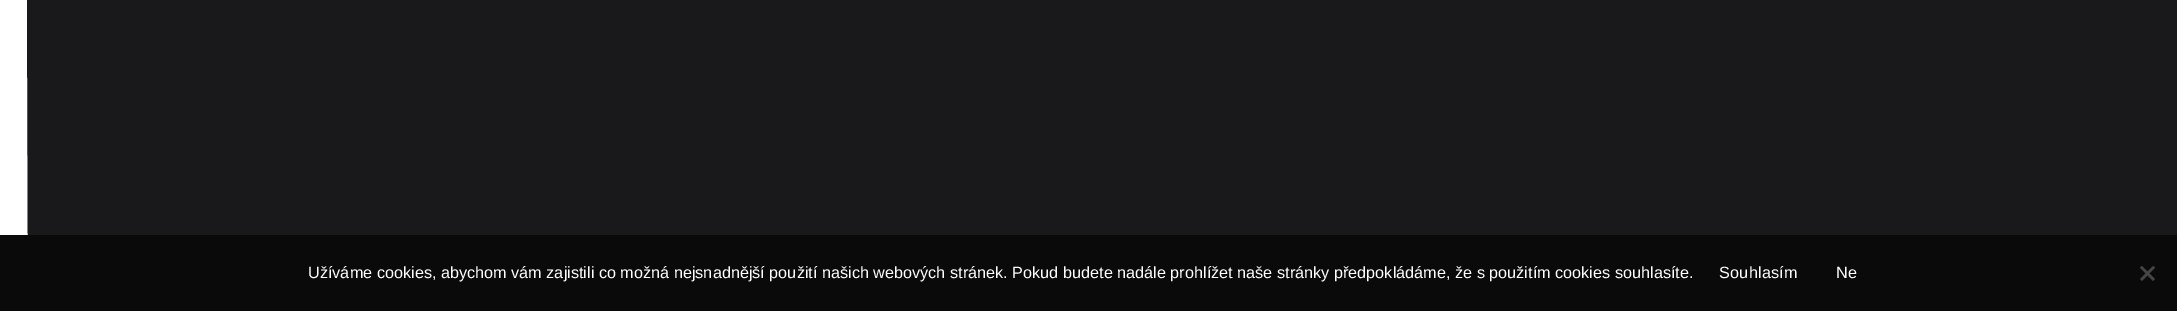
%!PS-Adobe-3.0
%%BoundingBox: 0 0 2177 311
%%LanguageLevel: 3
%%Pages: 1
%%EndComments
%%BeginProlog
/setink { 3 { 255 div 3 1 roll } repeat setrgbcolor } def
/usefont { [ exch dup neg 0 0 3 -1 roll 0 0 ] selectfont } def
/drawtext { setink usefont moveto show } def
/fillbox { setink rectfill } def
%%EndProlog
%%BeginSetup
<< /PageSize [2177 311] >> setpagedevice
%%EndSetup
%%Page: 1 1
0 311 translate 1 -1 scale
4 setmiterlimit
0 0 2177 311 255 255 255 fillbox
25 25 27 setink
27 0 moveto 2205 0 lineto 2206 311 lineto 28 311 lineto closepath fill
0 235 2177 76 10 10 10 fillbox
(Užíváme cookies, abychom vám zajistili co možná nejsnadnější použití našich webových stránek. Pokud budete nadále prohlížet naše stránky předpokládáme, že s použitím cookies souhlasíte.) 308 278 /LiberationSans-Regular 16.25 255 255 255 drawtext
1719 278 moveto 0.25 0 (Souhlasím) ashow
1836 278 moveto 0.25 0 (Ne) ashow
69 69 69 setink
2153 266 moveto 2155 267.5 lineto 2142 281 lineto 2140 279 lineto closepath fill
2140 267.5 moveto 2142 266 lineto 2155 279 lineto 2153 281 lineto closepath fill
showpage
%%EOF
